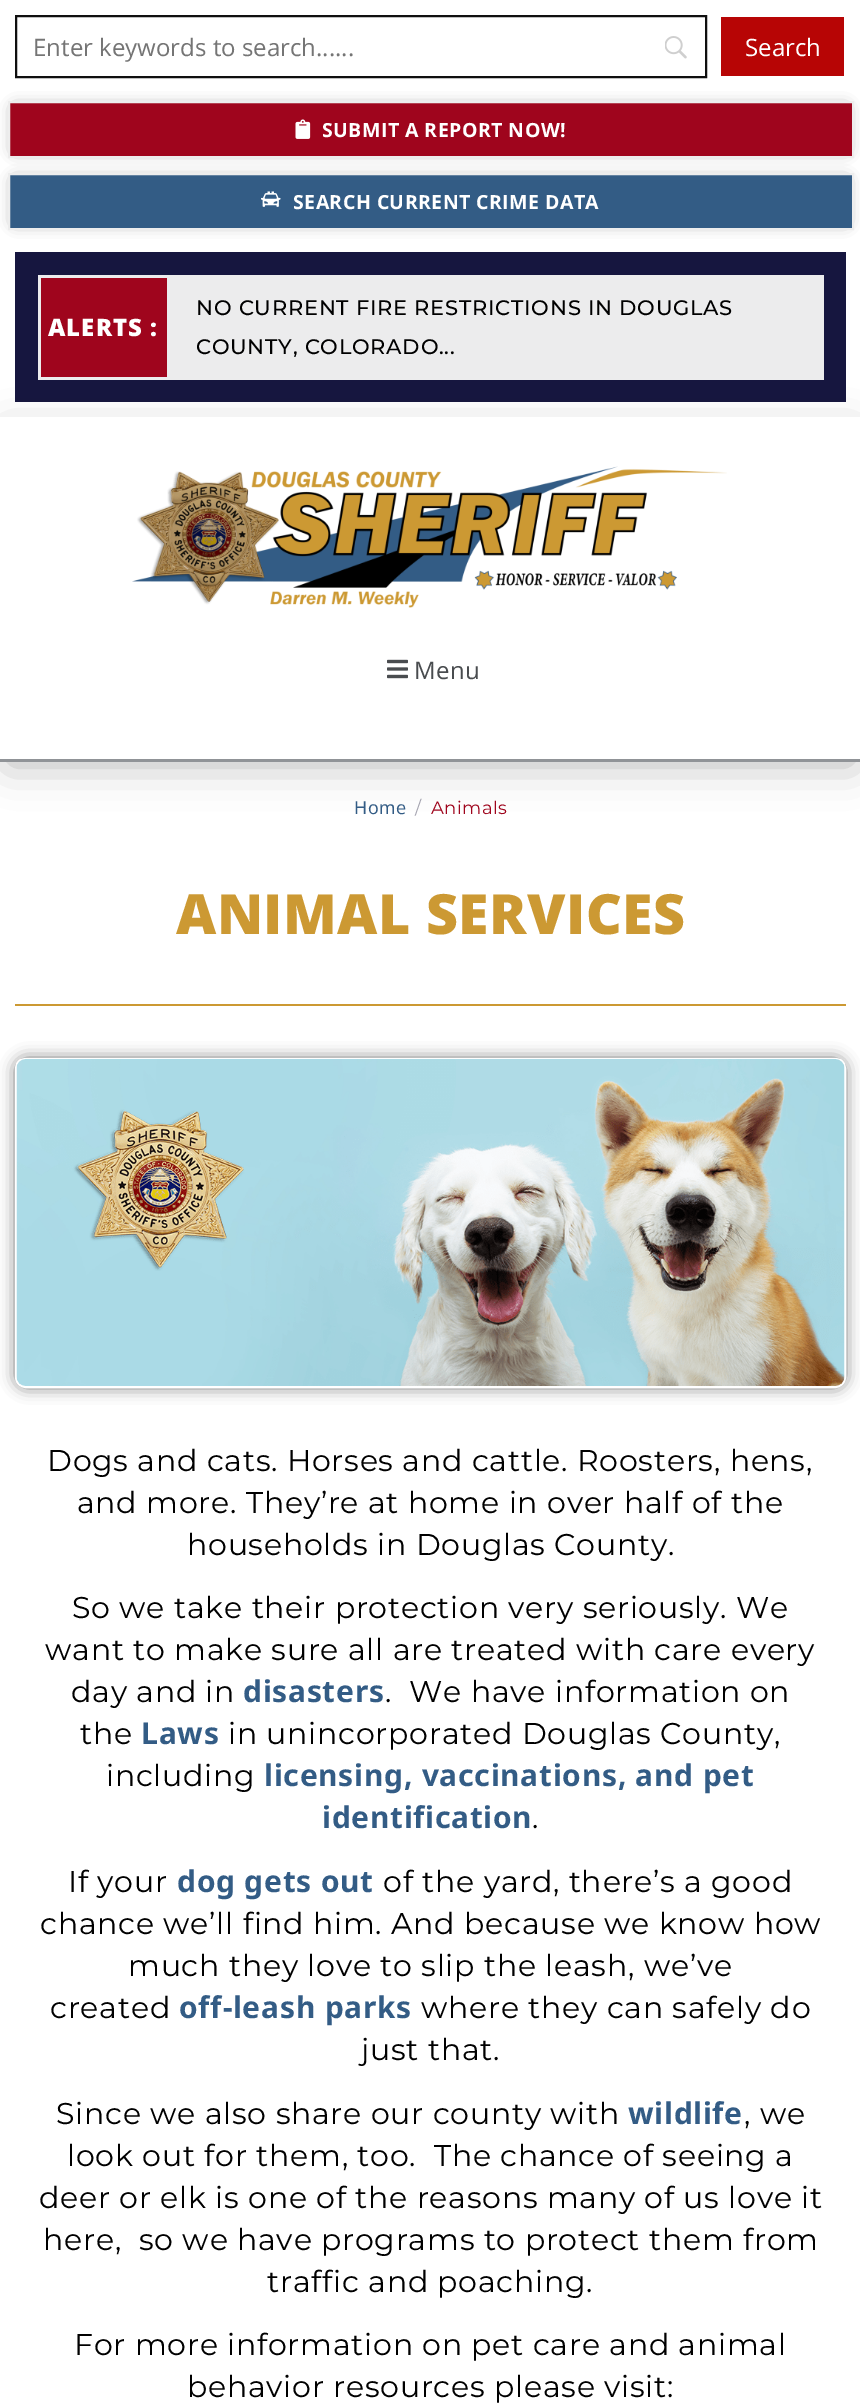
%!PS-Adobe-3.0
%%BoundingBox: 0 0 860 2403
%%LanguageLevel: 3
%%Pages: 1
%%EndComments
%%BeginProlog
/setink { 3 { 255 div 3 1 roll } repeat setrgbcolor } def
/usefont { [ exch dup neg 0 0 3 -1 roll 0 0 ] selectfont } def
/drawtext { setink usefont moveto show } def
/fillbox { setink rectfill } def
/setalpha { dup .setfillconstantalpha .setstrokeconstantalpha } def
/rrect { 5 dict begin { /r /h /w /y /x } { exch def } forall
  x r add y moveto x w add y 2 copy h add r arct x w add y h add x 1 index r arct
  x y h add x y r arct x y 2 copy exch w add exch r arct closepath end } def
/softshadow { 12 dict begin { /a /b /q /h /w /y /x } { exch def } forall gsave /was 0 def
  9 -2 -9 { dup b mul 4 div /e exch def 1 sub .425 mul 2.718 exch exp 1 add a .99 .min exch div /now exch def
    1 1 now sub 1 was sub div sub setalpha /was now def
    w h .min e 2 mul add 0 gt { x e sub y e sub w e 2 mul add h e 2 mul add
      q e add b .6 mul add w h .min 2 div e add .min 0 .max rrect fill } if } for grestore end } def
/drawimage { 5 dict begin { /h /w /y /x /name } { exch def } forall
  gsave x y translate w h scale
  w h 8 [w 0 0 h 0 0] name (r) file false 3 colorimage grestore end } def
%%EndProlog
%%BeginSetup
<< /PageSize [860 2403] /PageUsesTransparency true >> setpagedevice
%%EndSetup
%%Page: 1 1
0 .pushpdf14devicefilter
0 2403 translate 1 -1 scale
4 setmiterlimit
0 0 860 2403 255 255 255 fillbox
(assets/img1.rgb) 665 36 22 23 drawimage
15 15 15 setink
2 setlinewidth
16 16 690 61 rectstroke
(Enter keywords to search......) 33 56 /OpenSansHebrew-Regular 24 117 117 117 drawtext
721 17 123 59 183 5 5 fillbox
(Search) 745 56 /OpenSansHebrew-Regular 24 255 255 255 drawtext
0 0 0 setink
15 108 831 42 0 7.5 0.5 softshadow
159 5 29 setink
9 102 moveto 853 102 lineto 853 157 lineto 9 157 lineto closepath gsave fill grestore
237 237 237 setink
stroke
(assets/img2.rgb) 295 119 16 20 drawimage
/OpenSansHebrew-Bold 19.5 usefont
255 255 255 setink
322 137 moveto 0.45 0 (SUBMIT A REPORT NOW!) ashow
0 0 0 setink
15 180 831 42 0 7.5 0.5 softshadow
51 92 133 setink
9 174 moveto 853 174 lineto 853 229 lineto 9 229 lineto closepath gsave fill grestore
237 237 237 setink
stroke
(assets/img3.rgb) 261 191 20 16 drawimage
255 255 255 setink
293 209 moveto 0.45 0 (SEARCH CURRENT CRIME DATA) ashow
15 252 831 150 22 22 63 fillbox
38 275 786 105 236 236 237 fillbox
41 278 126 99 159 5 29 fillbox
/NotoSansHebrew-Black 24 usefont
255 255 255 setink
48 336 moveto 1 0 (ALERTS :) ashow
/Montserrat-Medium 21 usefont
0 0 0 setink
196 315 moveto 0.75 0 (NO CURRENT FIRE RESTRICTIONS IN DOUGLAS) ashow
196 354 moveto 0.75 0 (COUNTY, COLORADO...) ashow
gsave
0 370 moveto 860 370 lineto 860 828 lineto 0 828 lineto closepath 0 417 moveto 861 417 lineto 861 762 lineto 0 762 lineto closepath eoclip newpath
8 434 846 330 0 21 0.28 softshadow
grestore
0 759 860 3 144 147 151 fillbox
(assets/img4.rgb) 132 466 595 142 drawimage
(assets/img5.rgb) 387 659 21 20 drawimage
/OpenSansHebrew-Regular 24 usefont
73 76 79 setink
414 679 moveto 0.45 0 (Menu) ashow
/NotoSansHebrew-Regular 18 usefont
51 92 133 setink
354 814 moveto 0.45 0 (Home) ashow
/Montserrat-Regular 18 usefont
165 164 176 setink
415 814 moveto 0.45 0 (/) ashow
159 5 29 setink
431 814 moveto 0.45 0 (Animals) ashow
/OpenSansHebrew-ExtraBold 55.5 usefont
204 153 51 setink
176 934 moveto 0.45 0 (ANIMAL SERVICES) ashow
15 1004 831 2 204 153 51 fillbox
0 0 0 setink
15 1058 831 330 11 7.5 0.5 softshadow
255 255 255 setink
16 1059 829 328 10 rrect stroke
(assets/img6.rgb) 16 1059 829 327 drawimage
/Montserrat-Regular 30 usefont
0 0 0 setink
47 1471 moveto 0.75 0 (Dogs and cats. Horses and cattle. Roosters, hens,) ashow
77 1513 moveto 0.75 0 (and more. They’re at home in over half of the) ashow
187 1555 moveto 0.75 0 (households in Douglas County.) ashow
72 1618 moveto 0.75 0 (So we take their protection very seriously. We) ashow
45 1660 moveto 0.75 0 (want to make sure all are treated with care every) ashow
71 1702 moveto 0.75 0 (day and in) ashow
/NotoSansHebrew-Bold 30 usefont
51 92 133 setink
243 1702 moveto 0.75 0 (disasters) ashow
/Montserrat-Regular 30 usefont
0 0 0 setink
385 1702 moveto 0.75 0 (.  We have information on) ashow
80 1744 moveto 0.75 0 (the) ashow
/NotoSansHebrew-Bold 30 usefont
51 92 133 setink
141 1744 moveto 0.75 0 (Laws) ashow
/Montserrat-Regular 30 usefont
0 0 0 setink
228 1744 moveto 0.75 0 (in unincorporated Douglas County,) ashow
106 1786 moveto 0.75 0 (including) ashow
/NotoSansHebrew-Bold 30 usefont
51 92 133 setink
264 1786 moveto 0.75 0 (licensing, vaccinations, and pet) ashow
322 1828 moveto 0.75 0 (identification) ashow
/Montserrat-Regular 30 usefont
0 0 0 setink
532 1828 moveto 0.75 0 (.) ashow
68 1892 moveto 0.75 0 (If your) ashow
/NotoSansHebrew-Bold 30 usefont
51 92 133 setink
177 1892 moveto 0.75 0 (dog gets out) ashow
/Montserrat-Regular 30 usefont
0 0 0 setink
383 1892 moveto 0.75 0 (of the yard, there’s a good) ashow
40 1934 moveto 0.75 0 (chance we’ll find him. And because we know how) ashow
128 1976 moveto 0.75 0 (much they love to slip the leash, we’ve) ashow
50 2018 moveto 0.75 0 (created) ashow
/NotoSansHebrew-Bold 30 usefont
51 92 133 setink
179 2018 moveto 0.75 0 (off-leash parks) ashow
/Montserrat-Regular 30 usefont
0 0 0 setink
421 2018 moveto 0.75 0 (where they can safely do) ashow
361 2060 moveto 0.75 0 (just that.) ashow
56 2124 moveto 0.75 0 (Since we also share our county with) ashow
/NotoSansHebrew-Bold 30 usefont
51 92 133 setink
628 2124 moveto 0.75 0 (wildlife) ashow
/Montserrat-Regular 30 usefont
0 0 0 setink
744 2124 moveto 0.75 0 (, we) ashow
67 2166 moveto 0.75 0 (look out for them, too.  The chance of seeing a) ashow
39 2208 moveto 0.75 0 (deer or elk is one of the reasons many of us love it) ashow
43 2250 moveto 0.75 0 (here,  so we have programs to protect them from) ashow
267 2292 moveto 0.75 0 (traffic and poaching.) ashow
74 2355 moveto 0.75 0 (For more information on pet care and animal) ashow
187 2397 moveto 0.75 0 (behavior resources please visit:) ashow
.poppdf14devicefilter showpage
%%EOF
